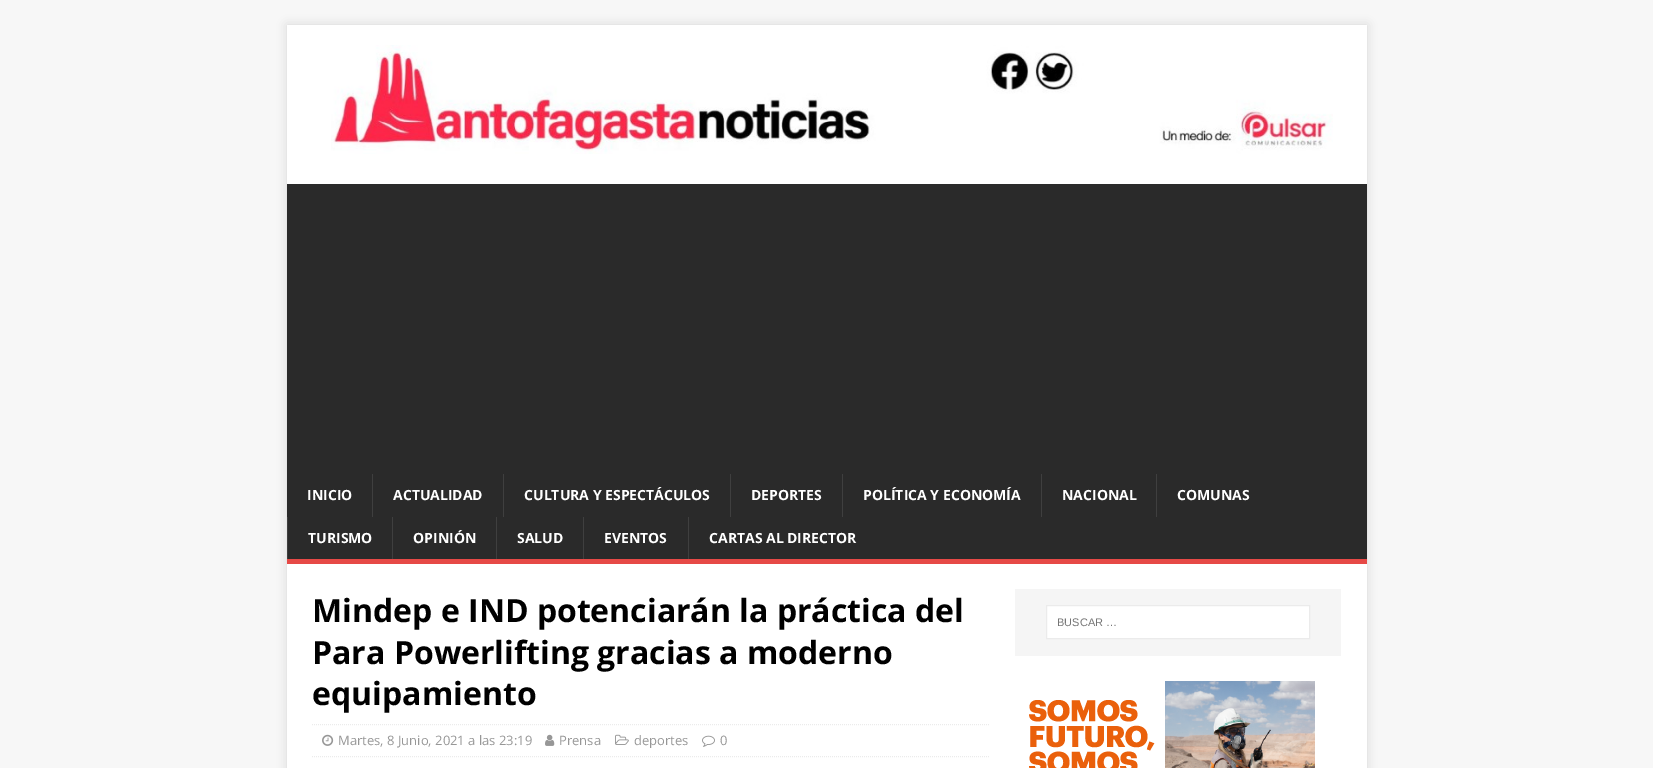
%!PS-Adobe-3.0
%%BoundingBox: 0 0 1653 768
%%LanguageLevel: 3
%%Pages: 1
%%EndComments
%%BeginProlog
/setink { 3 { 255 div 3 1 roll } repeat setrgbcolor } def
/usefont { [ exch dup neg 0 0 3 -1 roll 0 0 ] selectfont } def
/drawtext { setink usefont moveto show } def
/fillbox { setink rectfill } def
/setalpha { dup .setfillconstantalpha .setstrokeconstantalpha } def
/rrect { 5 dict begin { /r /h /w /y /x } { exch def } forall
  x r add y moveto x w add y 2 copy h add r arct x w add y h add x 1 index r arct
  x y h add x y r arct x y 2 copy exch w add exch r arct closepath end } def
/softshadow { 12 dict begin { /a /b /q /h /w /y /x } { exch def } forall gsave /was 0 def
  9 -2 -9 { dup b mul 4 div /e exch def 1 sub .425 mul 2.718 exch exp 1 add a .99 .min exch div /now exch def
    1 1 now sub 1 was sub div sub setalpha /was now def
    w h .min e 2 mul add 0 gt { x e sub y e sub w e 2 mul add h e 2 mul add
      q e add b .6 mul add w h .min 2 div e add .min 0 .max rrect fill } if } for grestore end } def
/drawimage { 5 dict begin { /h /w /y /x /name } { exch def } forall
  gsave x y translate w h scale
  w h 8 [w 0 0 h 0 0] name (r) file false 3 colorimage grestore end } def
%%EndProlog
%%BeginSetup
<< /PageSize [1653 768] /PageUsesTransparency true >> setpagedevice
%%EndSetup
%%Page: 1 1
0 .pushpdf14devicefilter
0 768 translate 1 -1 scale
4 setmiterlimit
0 0 1653 768 247 247 247 fillbox
50 50 50 setink
287 25 1080 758 0 5 0.17 softshadow
287 25 1080 159 255 255 255 fillbox
(assets/img1.rgb) 331 45 1002 109 drawimage
287 184 1080 375 42 42 42 fillbox
287 559 1080 5 230 73 70 fillbox
(INICIO) 307 500 /OpenSans-Bold 14 255 255 255 drawtext
372 474 1 43 63 63 63 fillbox
(ACTUALIDAD) 393 500 /OpenSans-Bold 14 255 255 255 drawtext
503 474 1 43 63 63 63 fillbox
(CULTURA Y ESPECTÁCULOS) 524 500 /OpenSans-Bold 14 255 255 255 drawtext
730 474 1 43 63 63 63 fillbox
(DEPORTES) 751 500 /OpenSans-Bold 14 255 255 255 drawtext
842 474 1 43 63 63 63 fillbox
(POLÍTICA Y ECONOMÍA) 863 500 /OpenSans-Bold 14 255 255 255 drawtext
1041 474 1 43 63 63 63 fillbox
(NACIONAL) 1062 500 /OpenSans-Bold 14 255 255 255 drawtext
1156 474 1 43 63 63 63 fillbox
(COMUNAS) 1177 500 /OpenSans-Bold 14 255 255 255 drawtext
287 517 1 42 63 63 63 fillbox
(TURISMO) 308 543 /OpenSans-Bold 14 255 255 255 drawtext
392 517 1 42 63 63 63 fillbox
(OPINIÓN) 413 543 /OpenSans-Bold 14 255 255 255 drawtext
496 517 1 42 63 63 63 fillbox
(SALUD) 517 543 /OpenSans-Bold 14 255 255 255 drawtext
583 517 1 42 63 63 63 fillbox
(EVENTOS) 604 543 /OpenSans-Bold 14 255 255 255 drawtext
688 517 1 42 63 63 63 fillbox
(CARTAS AL DIRECTOR) 709 543 /OpenSans-Bold 14 255 255 255 drawtext
287 564 1080 204 255 255 255 fillbox
(Mindep e IND potenciarán la práctica del) 312 622 /OpenSans-Bold 32 0 0 0 drawtext
(Para Powerlifting gracias a moderno) 312 664 /OpenSans-Bold 32 0 0 0 drawtext
(equipamiento) 312 705 /OpenSans-Bold 32 0 0 0 drawtext
235 235 235 setink
[1 1] 0 setdash
312 724.5 moveto 990 724.5 lineto stroke
312 756.5 moveto 990 756.5 lineto stroke
(assets/img2.rgb) 322 734 12 12 drawimage
(Martes, 8 Junio, 2021 a las 23:19) 338 745 /OpenSans-Regular 13 151 151 151 drawtext
(assets/img3.rgb) 545 734 10 12 drawimage
(Prensa) 559 745 /OpenSans-Regular 13 151 151 151 drawtext
(assets/img4.rgb) 615 734 14 11 drawimage
(deportes) 634 745 /OpenSans-Regular 13 151 151 151 drawtext
(assets/img5.rgb) 702 735 13 12 drawimage
(0) 720 745 /OpenSans-Regular 13 151 151 151 drawtext
1015 589 326 67 245 245 245 fillbox
255 255 255 setink
1046.5 605.5 moveto 1309.5 605.5 lineto 1309.5 638.5 lineto 1046.5 638.5 lineto closepath gsave fill grestore
235 235 235 setink
[] 0 setdash
stroke
(BUSCAR …) 1057 626 /LiberationSans-Regular 11 117 117 117 drawtext
(assets/img6.rgb) 1029 681 286 87 drawimage
.poppdf14devicefilter showpage
%%EOF
